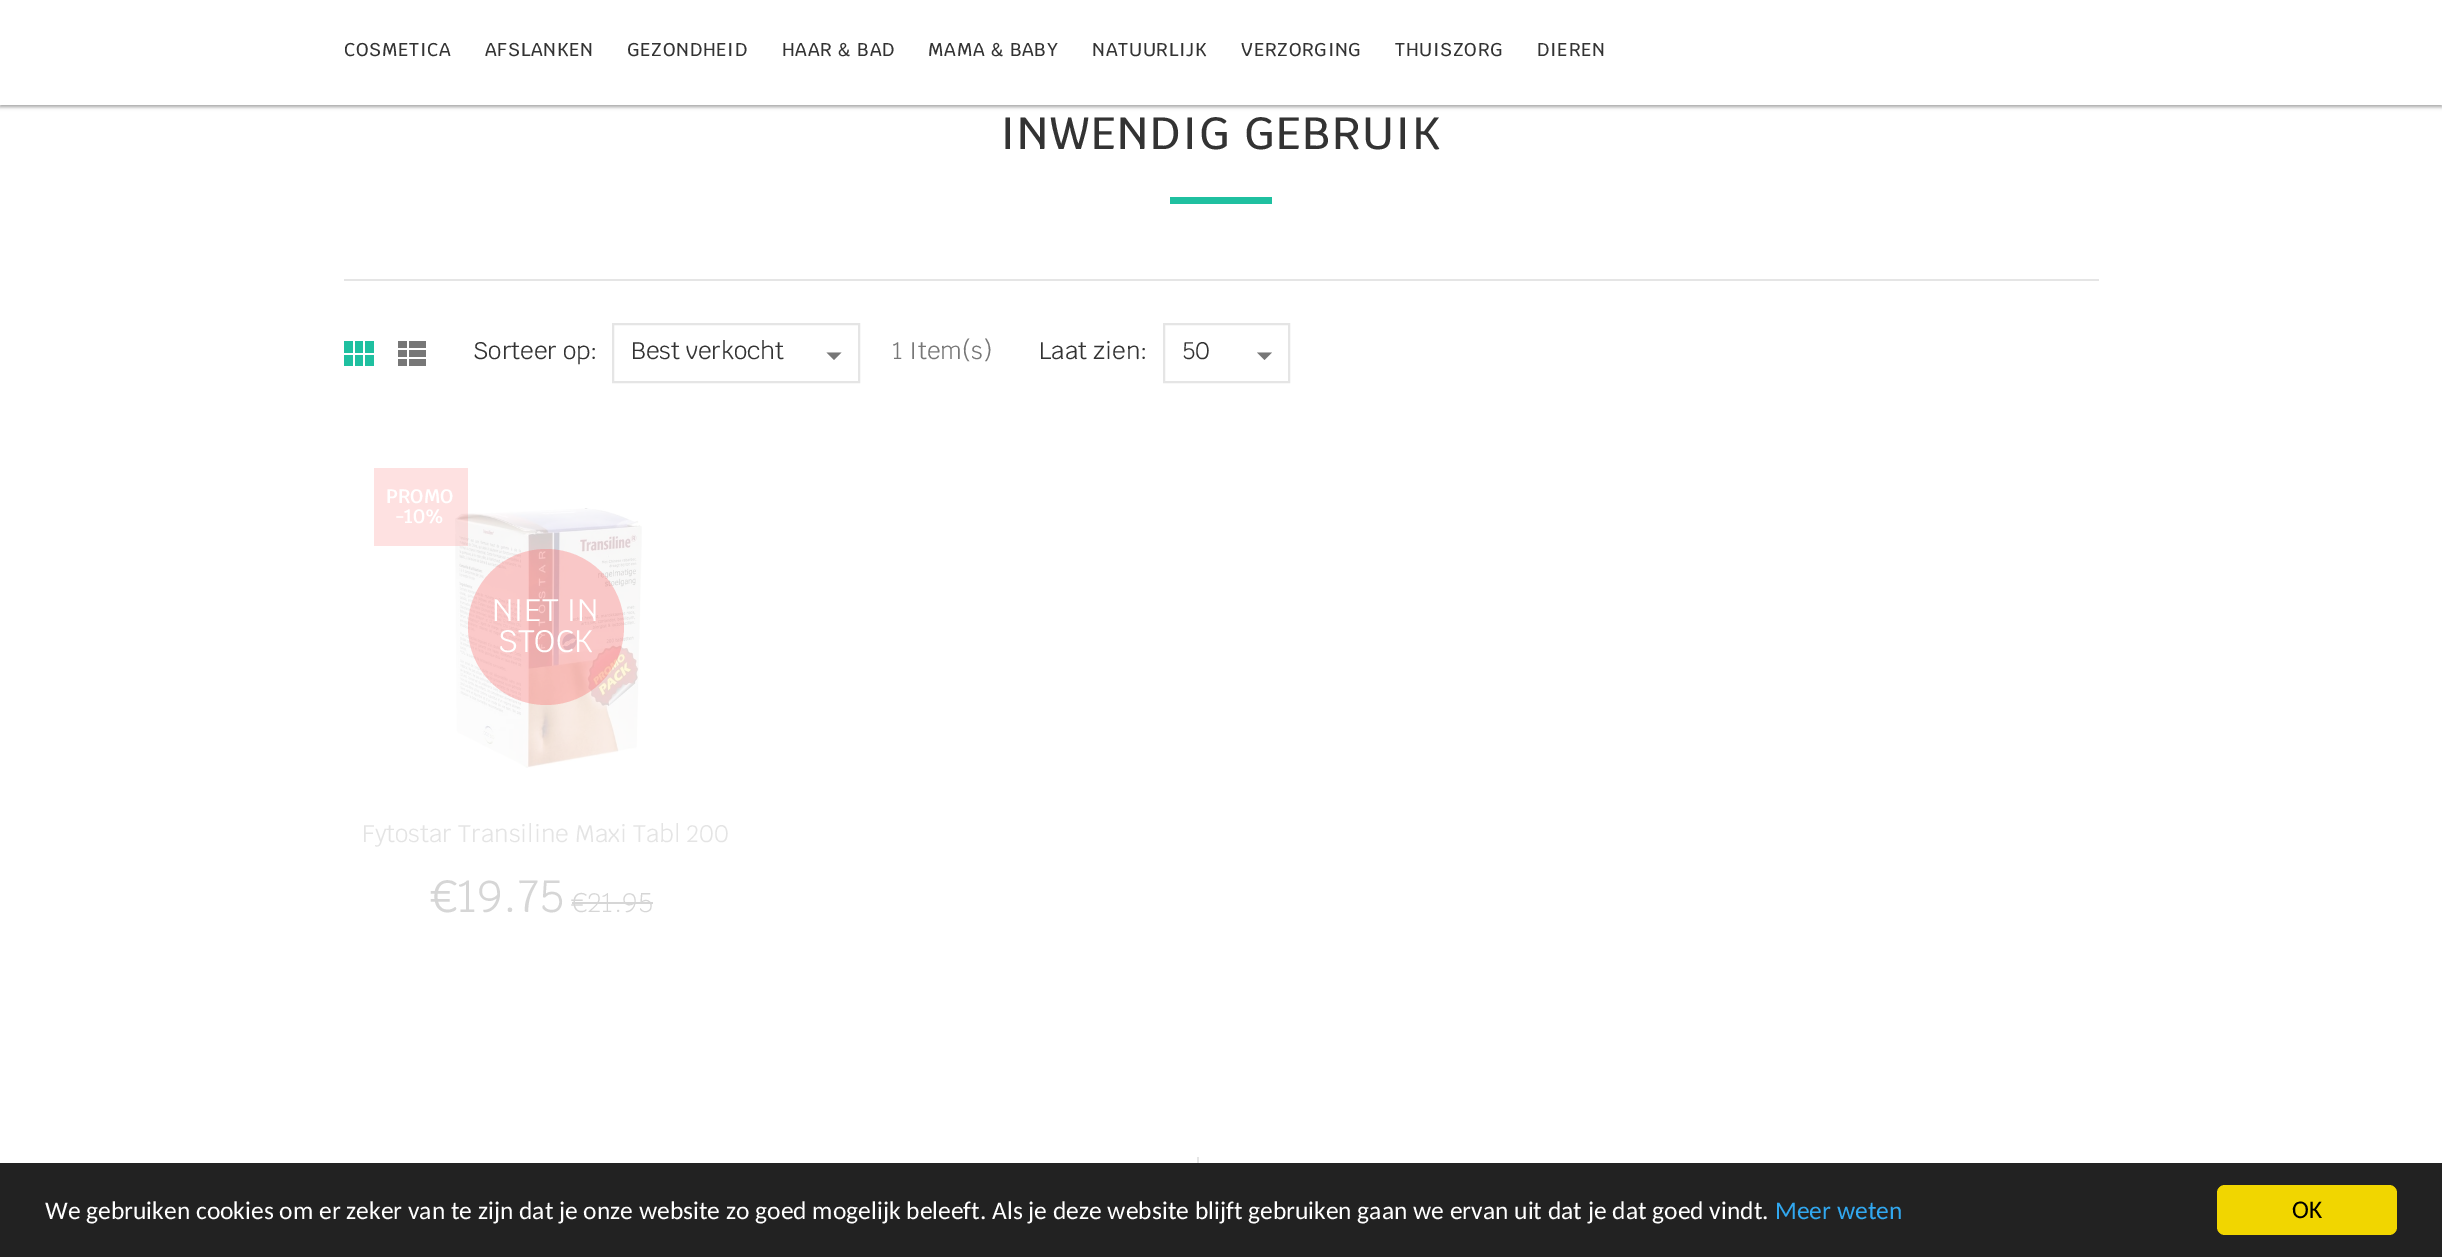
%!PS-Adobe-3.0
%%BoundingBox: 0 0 2442 1257
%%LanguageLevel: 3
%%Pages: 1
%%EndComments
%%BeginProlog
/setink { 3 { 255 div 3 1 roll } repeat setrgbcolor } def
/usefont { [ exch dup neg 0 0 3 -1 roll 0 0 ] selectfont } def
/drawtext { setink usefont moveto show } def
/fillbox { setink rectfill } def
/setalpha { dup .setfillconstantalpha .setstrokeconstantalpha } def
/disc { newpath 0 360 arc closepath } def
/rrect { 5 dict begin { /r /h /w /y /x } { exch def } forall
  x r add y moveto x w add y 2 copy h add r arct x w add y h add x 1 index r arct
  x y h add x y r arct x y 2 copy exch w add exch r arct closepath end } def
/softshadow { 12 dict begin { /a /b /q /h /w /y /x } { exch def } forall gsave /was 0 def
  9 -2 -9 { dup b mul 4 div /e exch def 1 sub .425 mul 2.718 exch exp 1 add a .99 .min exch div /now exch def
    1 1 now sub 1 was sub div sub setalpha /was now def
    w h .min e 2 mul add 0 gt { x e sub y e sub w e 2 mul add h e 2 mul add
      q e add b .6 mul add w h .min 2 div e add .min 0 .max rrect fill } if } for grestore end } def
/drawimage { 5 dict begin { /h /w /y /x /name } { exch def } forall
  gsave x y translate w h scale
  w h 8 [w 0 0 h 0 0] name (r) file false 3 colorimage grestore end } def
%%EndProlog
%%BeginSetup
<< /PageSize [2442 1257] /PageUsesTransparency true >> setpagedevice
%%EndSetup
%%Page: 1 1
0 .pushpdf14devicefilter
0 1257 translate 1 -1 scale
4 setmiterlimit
0 0 2442 1257 255 255 255 fillbox
0 0 0 setink
0 2 2442 105 0 1.5 0.24 softshadow
0 2 2442 105 0 2 0.12 softshadow
0 0 2442 105 255 255 255 fillbox
/Krub-Medium 18.5 usefont
51 51 51 setink
344 56 moveto 0.75 0 (COSMETICA) ashow
485 56 moveto 0.75 0 (AFSLANKEN) ashow
627 56 moveto 0.75 0 (GEZONDHEID) ashow
782 56 moveto 0.75 0 (HAAR & BAD) ashow
928 56 moveto 0.75 0 (MAMA & BABY) ashow
1092 56 moveto 0.75 0 (NATUURLIJK) ashow
1241 56 moveto 0.75 0 (VERZORGING) ashow
1395 56 moveto 0.75 0 (THUISZORG) ashow
1537 56 moveto 0.75 0 (DIEREN) ashow
/Krub-Medium 45 usefont
1000 149 moveto 1.5 0 (INWENDIG GEBRUIK) ashow
1170 197 102 7 31 192 160 fillbox
344 279 1755 2 229 229 229 fillbox
344 341 30 25 31 192 160 fillbox
344 353 30 2 255 255 255 fillbox
353 341 2 25 255 255 255 fillbox
363 341 2 25 255 255 255 fillbox
398 341 28 25 119 119 119 fillbox
398 348 28 2 255 255 255 fillbox
407 341 2 25 255 255 255 fillbox
398 357 28 2 255 255 255 fillbox
(Sorteer op:) 473 359 /Krub-Regular 24 51 51 51 drawtext
229 229 229 setink
2 setlinewidth
613 324 246 58 rectstroke
(Best verkocht) 631 359 /Krub-Regular 24 51 51 51 drawtext
119 119 119 setink
826.5 352.5 moveto 841.5 352.5 lineto 834 360 lineto closepath fill
(1 Item\(s\)) 892 359 /Krub-Regular 24 119 119 119 drawtext
(Laat zien:) 1039 359 /Krub-Regular 24 51 51 51 drawtext
229 229 229 setink
1164 324 125 58 rectstroke
(50) 1182 359 /Krub-Regular 24 51 51 51 drawtext
119 119 119 setink
1257 352.5 moveto 1272 352.5 lineto 1264.5 360 lineto closepath fill
(assets/img1.rgb) 455 508 187 260 drawimage
0.2 setalpha
374 468 94 78 250 107 107 fillbox
1 setalpha
(PROMO) 386 503 /Krub-SemiBold 19.5 255 255 255 drawtext
(-10%) 395 523 /Krub-SemiBold 19.5 255 255 255 drawtext
0.35 setalpha
250 107 107 setink
546 627 78 disc fill
1 setalpha
(NIET IN) 492 621 /Krub-Regular 31 255 255 255 drawtext
(STOCK) 498 652 /Krub-Regular 31 255 255 255 drawtext
(Fytostar Transiline Maxi Tabl 200) 362 842 /Krub-Regular 24 228 228 228 drawtext
(€19.75) 432 912 /Krub-Regular 45 214 214 214 drawtext
(€21.95) 572 912 /Krub-Light 27 214 214 214 drawtext
572 902 81 2 214 214 214 fillbox
1197 1157 2 6 229 229 229 fillbox
0 1163 2442 94 34 34 34 fillbox
(We gebruiken cookies om er zeker van te zijn dat je onze website zo goed mogelijk beleeft. Als je deze website blijft gebruiken gaan we ervan uit dat je dat goed vindt.) 45 1219 /Carlito-Regular 25.5 255 255 255 drawtext
(Meer weten) 1775 1219 /Carlito-Regular 25.5 49 168 240 drawtext
241 214 0 setink
2217 1185 180 50 8 rrect fill
(OK) 2292 1218 /Carlito-Regular 25.5 0 0 0 drawtext
.poppdf14devicefilter showpage
%%EOF
